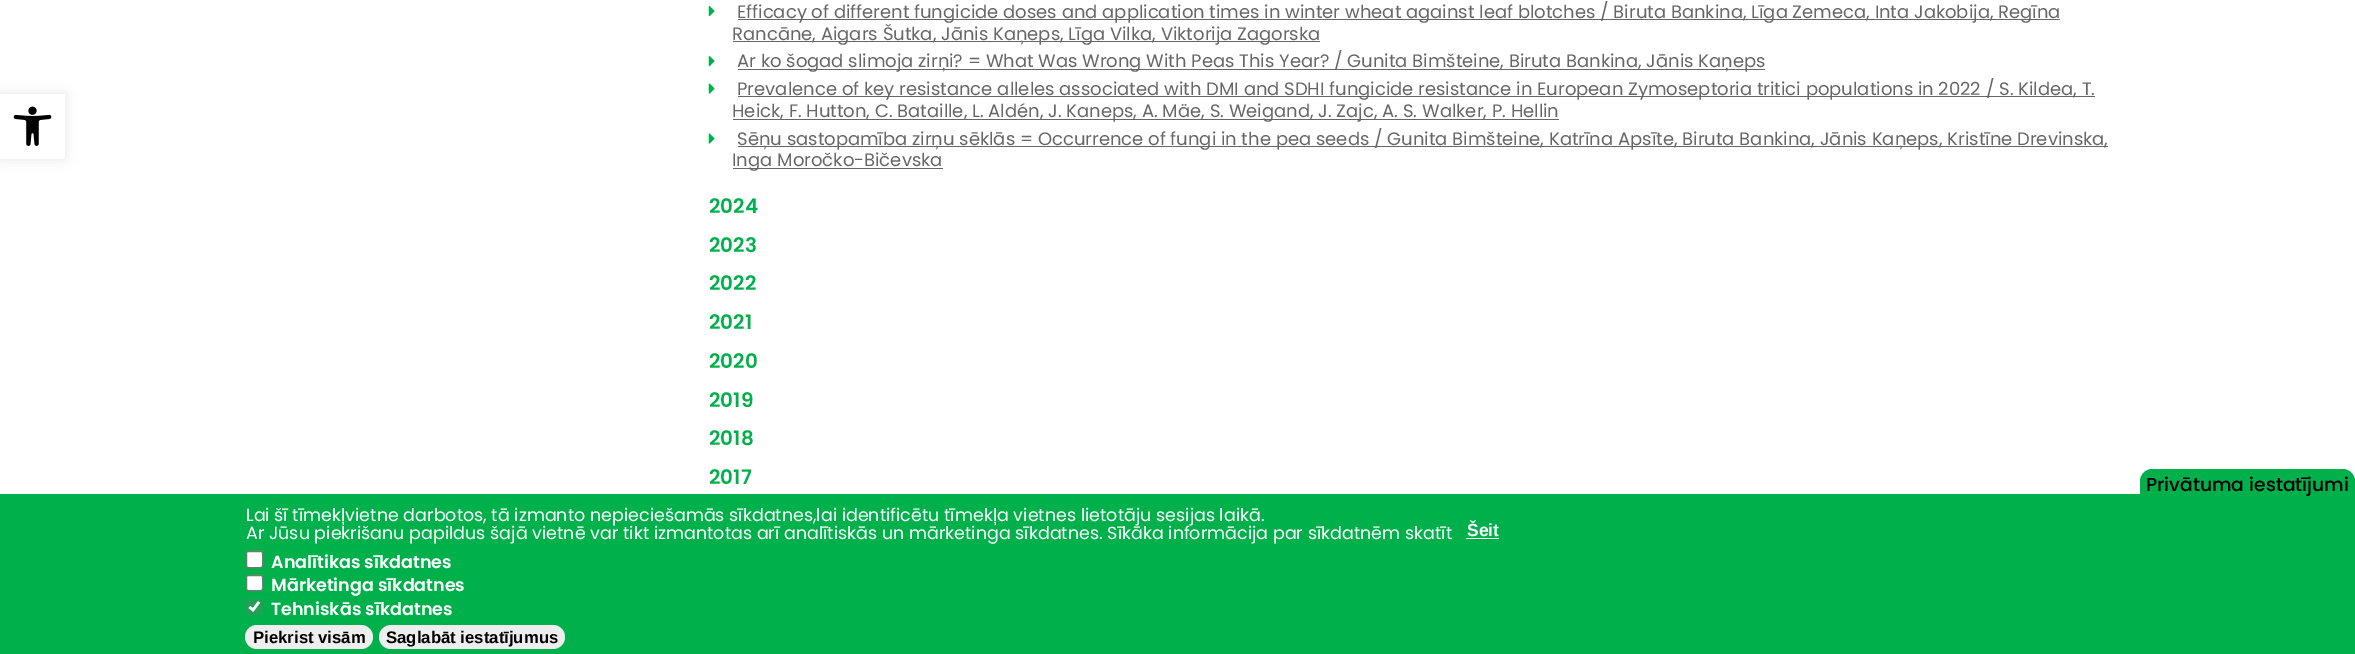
%!PS-Adobe-3.0
%%BoundingBox: 0 0 2355 654
%%LanguageLevel: 3
%%Pages: 1
%%EndComments
%%BeginProlog
/setink { 3 { 255 div 3 1 roll } repeat setrgbcolor } def
/usefont { [ exch dup neg 0 0 3 -1 roll 0 0 ] selectfont } def
/drawtext { setink usefont moveto show } def
/fillbox { setink rectfill } def
/setalpha { dup .setfillconstantalpha .setstrokeconstantalpha } def
/rrect { 5 dict begin { /r /h /w /y /x } { exch def } forall
  x r add y moveto x w add y 2 copy h add r arct x w add y h add x 1 index r arct
  x y h add x y r arct x y 2 copy exch w add exch r arct closepath end } def
/softshadow { 12 dict begin { /a /b /q /h /w /y /x } { exch def } forall gsave /was 0 def
  9 -2 -9 { dup b mul 4 div /e exch def 1 sub .425 mul 2.718 exch exp 1 add a .99 .min exch div /now exch def
    1 1 now sub 1 was sub div sub setalpha /was now def
    w h .min e 2 mul add 0 gt { x e sub y e sub w e 2 mul add h e 2 mul add
      q e add b .6 mul add w h .min 2 div e add .min 0 .max rrect fill } if } for grestore end } def
/drawimage { 5 dict begin { /h /w /y /x /name } { exch def } forall
  gsave x y translate w h scale
  w h 8 [w 0 0 h 0 0] name (r) file false 3 colorimage grestore end } def
%%EndProlog
%%BeginSetup
<< /PageSize [2355 654] /PageUsesTransparency true >> setpagedevice
%%EndSetup
%%Page: 1 1
0 .pushpdf14devicefilter
0 654 translate 1 -1 scale
4 setmiterlimit
0 0 2355 654 255 255 255 fillbox
0 0 0 setink
0 94 65 65 0 6 0.1 softshadow
0 94 65 65 255 255 255 fillbox
(assets/img1.rgb) 13 106 39 40 drawimage
(assets/img2.rgb) 708 6 7 11 drawimage
738 19 1322 1 102 102 102 fillbox
(Efficacy of different fungicide doses and application times in winter wheat against leaf blotches / Biruta Bankina, Līga Zemeca, Inta Jakobija, Regīna) 737 18 /Poppins-Regular 18 102 102 102 drawtext
733 41 587 1 102 102 102 fillbox
(Rancāne, Aigars Šutka, Jānis Kaņeps, Līga Vilka, Viktorija Zagorska) 732 40 /Poppins-Regular 18 102 102 102 drawtext
(assets/img2.rgb) 708 56 7 11 drawimage
738 69 1027 1 102 102 102 fillbox
(Ar ko šogad slimoja zirņi? = What Was Wrong With Peas This Year? / Gunita Bimšteine, Biruta Bankina, Jānis Kaņeps) 737 67 /Poppins-Regular 18 102 102 102 drawtext
(assets/img3.rgb) 708 83 7 11 drawimage
738 96 1357 1 102 102 102 fillbox
(Prevalence of key resistance alleles associated with DMI and SDHI fungicide resistance in European Zymoseptoria tritici populations in 2022 / S. Kildea, T.) 737 95 /Poppins-Regular 18 102 102 102 drawtext
733 119 826 1 102 102 102 fillbox
(Heick, F. Hutton, C. Bataille, L. Aldén, J. Kaneps, A. Mäe, S. Weigand, J. Zajc, A. S. Walker, P. Hellin) 732 117 /Poppins-Regular 18 102 102 102 drawtext
(assets/img3.rgb) 708 133 7 11 drawimage
738 146 1370 1 102 102 102 fillbox
(Sēņu sastopamība zirņu sēklās = Occurrence of fungi in the pea seeds / Gunita Bimšteine, Katrīna Apsīte, Biruta Bankina, Jānis Kaņeps, Kristīne Drevinska,) 737 145 /Poppins-Regular 18 102 102 102 drawtext
733 168 210 1 102 102 102 fillbox
(Inga Moročko-Bičevska) 732 166 /Poppins-Regular 18 102 102 102 drawtext
(2024) 709 213 /Poppins-SemiBold 20 0 176 75 drawtext
(2023) 709 252 /Poppins-SemiBold 20 0 176 75 drawtext
(2022) 709 290 /Poppins-SemiBold 20 0 176 75 drawtext
(2021) 709 329 /Poppins-SemiBold 20 0 176 75 drawtext
(2020) 709 368 /Poppins-SemiBold 20 0 176 75 drawtext
(2019) 709 407 /Poppins-SemiBold 20 0 176 75 drawtext
(2018) 709 445 /Poppins-SemiBold 20 0 176 75 drawtext
(2017) 709 484 /Poppins-SemiBold 20 0 176 75 drawtext
2152.5 469 moveto 2342.5 469 lineto 2349.5 469 2355 474.5 2355 481.5 curveto 2355 494 lineto 2140 494 lineto 2140 481.5 lineto 2140 474.5 2145.5 469 2152.5 469 curveto closepath fill
0 494 2355 160 0 176 75 fillbox
(Privātuma iestatījumi) 2146 491 /Poppins-Medium 18.75 0 0 0 drawtext
(Lai šī tīmekļvietne darbotos, tā izmanto nepieciešamās sīkdatnes,lai identificētu tīmekļa vietnes lietotāju sesijas laikā.) 246 521 /Poppins-Regular 17.5 255 255 255 drawtext
(Ar Jūsu piekrišanu papildus šajā vietnē var tikt izmantotas arī analītiskās un mārketinga sīkdatnes. Sīkāka informācija par sīkdatnēm skatīt) 246 539 /Poppins-Regular 17.5 255 255 255 drawtext
(Šeit) 1467 536 /LiberationSans-Bold 17.5 255 255 255 drawtext
1466 538 33 1 255 255 255 fillbox
246.5 551.5 16 16 2 rrect gsave fill grestore
118 118 118 setink
stroke
(Analītikas sīkdatnes) 271 568 /Poppins-SemiBold 17.5 255 255 255 drawtext
246.5 575.5 16 15 2 rrect gsave fill grestore
118 118 118 setink
stroke
(Mārketinga sīkdatnes) 271 591 /Poppins-SemiBold 17.5 255 255 255 drawtext
35 159 88 setink
246 599 17 16 2.5 rrect fill
255 255 255 setink
2.6 setlinewidth
249.5 607 moveto 253 610 lineto 259 602 lineto stroke
(Tehniskās sīkdatnes) 271 615 /Poppins-SemiBold 17.5 255 255 255 drawtext
238 238 238 setink
379 625 186 24 12 rrect fill
(Saglabāt iestatījumus) 386 643 /LiberationSans-Bold 16.75 0 0 0 drawtext
238 238 238 setink
245 625 128 24 12 rrect fill
(Piekrist visām) 253 643 /LiberationSans-Bold 16.75 0 0 0 drawtext
.poppdf14devicefilter showpage
%%EOF
